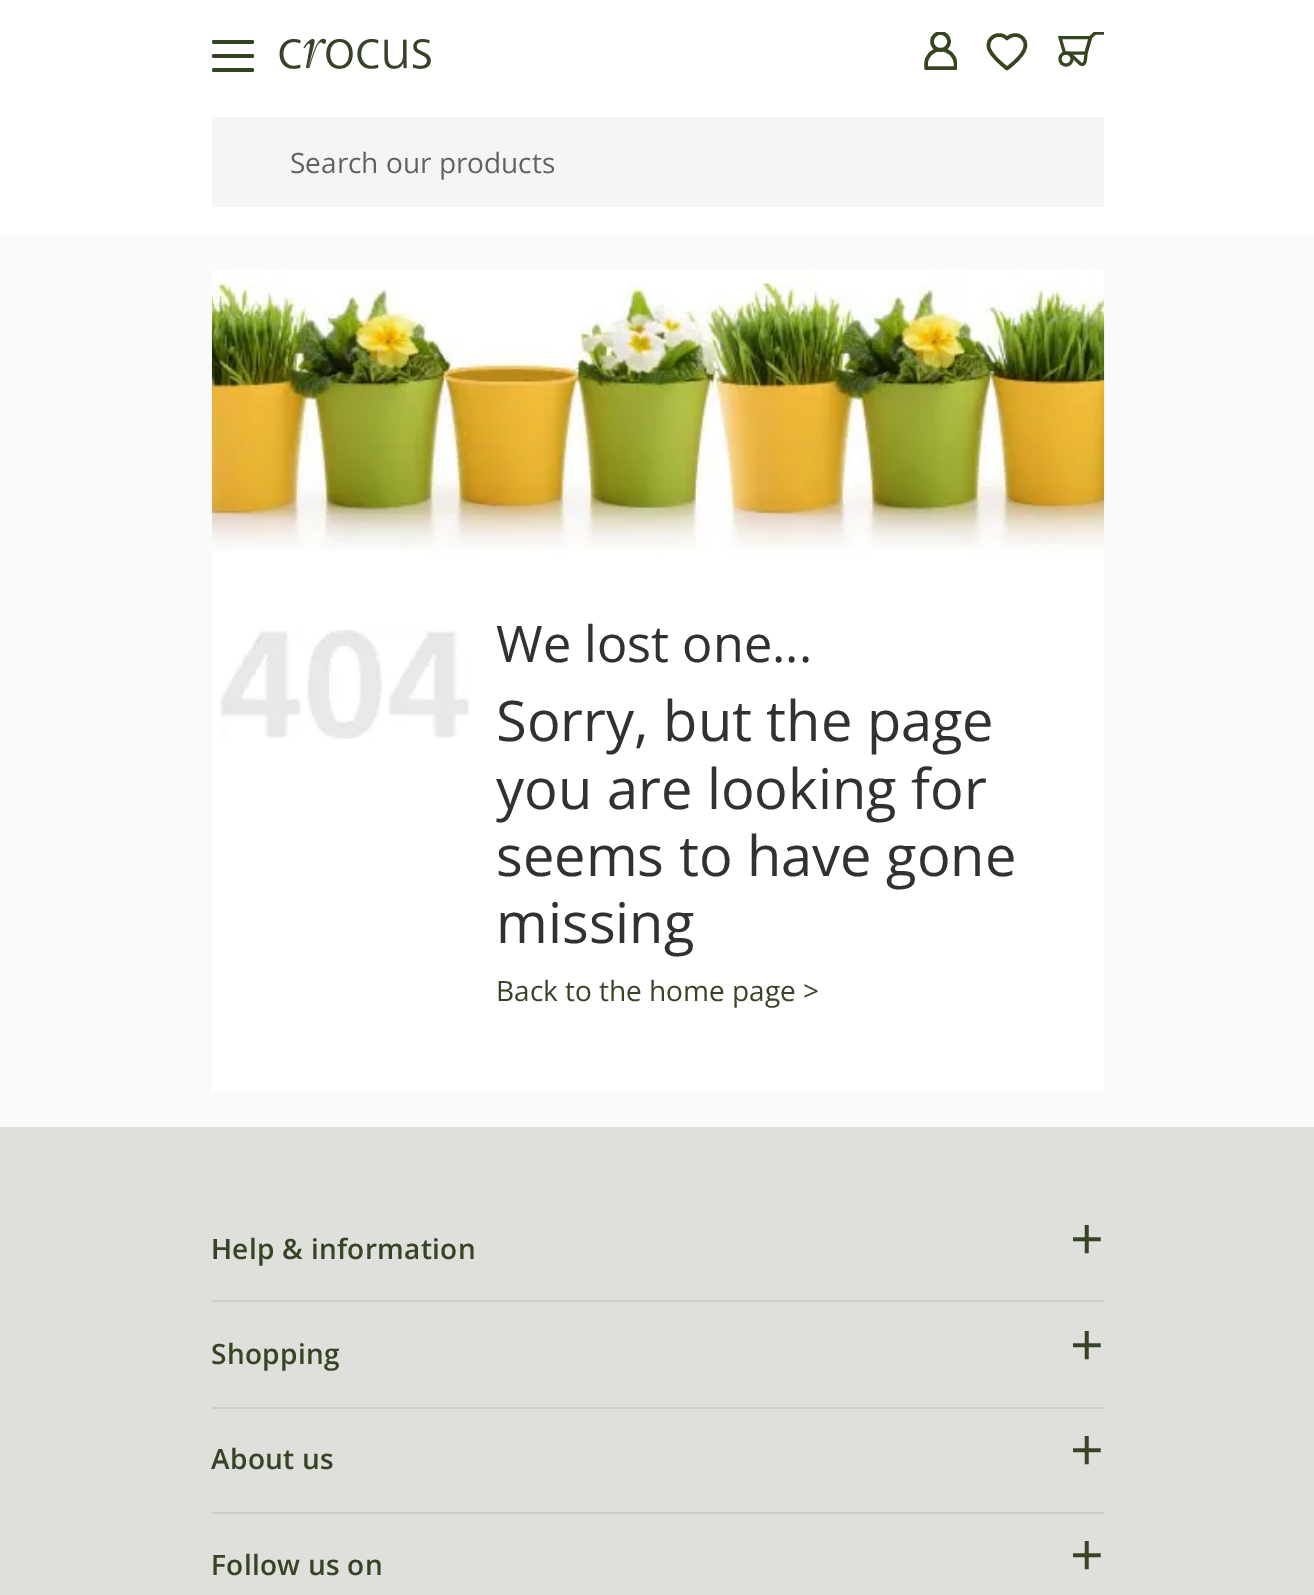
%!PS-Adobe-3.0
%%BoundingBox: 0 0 1314 1595
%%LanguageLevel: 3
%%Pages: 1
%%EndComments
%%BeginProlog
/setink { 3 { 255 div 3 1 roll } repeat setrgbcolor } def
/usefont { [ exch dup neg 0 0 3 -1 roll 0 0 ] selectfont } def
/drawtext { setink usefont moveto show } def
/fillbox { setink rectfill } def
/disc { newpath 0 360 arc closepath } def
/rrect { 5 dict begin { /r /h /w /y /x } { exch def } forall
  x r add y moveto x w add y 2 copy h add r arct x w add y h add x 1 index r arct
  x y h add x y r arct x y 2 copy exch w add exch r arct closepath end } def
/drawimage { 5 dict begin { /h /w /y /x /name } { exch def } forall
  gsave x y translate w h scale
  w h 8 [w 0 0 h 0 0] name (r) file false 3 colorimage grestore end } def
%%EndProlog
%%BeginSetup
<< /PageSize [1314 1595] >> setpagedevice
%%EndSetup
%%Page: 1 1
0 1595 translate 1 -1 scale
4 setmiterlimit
0 0 1314 1595 250 250 250 fillbox
0 0 1314 235 255 255 255 fillbox
52 68 33 setink
212 40 42 4 2 rrect fill
212 54 42 4 2 rrect fill
212 68 42 4 2 rrect fill
(assets/img1.rgb) 279 38 152 31 drawimage
gsave
924 32 33 38 rectclip
53 69 32 setink
3.5 setlinewidth
1 setlinecap
1 setlinejoin
940.5 49.5 moveto 949 49.5 955.5 56 955.5 64 curveto 955.5 68 lineto 926 68 lineto 926 64 lineto 926 56 932.5 49.5 940.5 49.5 curveto closepath stroke
0 setlinecap
0 setlinejoin
940.5 41.5 8.5 disc stroke
grestore
53 69 32 setink
3.5 setlinewidth
1 setlinecap
1 setlinejoin
1022 37.5 moveto 1017.5 33.5 1011 34.5 1007 38.5 curveto 999 30 985.5 38 989 48.5 curveto 992 56.5 1001 63.5 1007 68.5 curveto 1014 63 1033.5 48 1022 37.5 curveto closepath stroke
3 setlinewidth
0 setlinecap
0 setlinejoin
1086 53 moveto 1064.5 53 lineto 1060 37.5 lineto 1090.5 37.5 lineto closepath stroke
gsave
1057 32 47 35 rectclip
1069 53 moveto 1080.5 64 lineto 1086.5 67 1085.5 55 1086 53 curveto 1090.5 37.5 lineto 1095 33 lineto 1104 33 lineto stroke
grestore
1066 59 6 disc stroke
212 117 892 90 245 246 244 fillbox
(Search our products) 290 173 /OpenSans-Regular 28 98 97 97 drawtext
212 554 892 538 255 255 255 fillbox
(assets/img2.rgb) 211 270 894 284 drawimage
(assets/img3.rgb) 220 630 249 109 drawimage
(We lost one...) 496 662 /OpenSans-Regular 50.5 49 49 49 drawtext
(Sorry, but the page) 496 741 /OpenSans-Regular 56 49 49 49 drawtext
(you are looking for) 496 809 /OpenSans-Regular 56 49 49 49 drawtext
(seems to have gone) 496 876 /OpenSans-Regular 56 49 49 49 drawtext
(missing) 496 943 /OpenSans-Regular 56 49 49 49 drawtext
(Back to the home page >) 496 1001 /OpenSans-Regular 28 55 67 37 drawtext
0 1127 1314 468 223 224 220 fillbox
212 1300 892 2 205 205 205 fillbox
/OpenSans-SemiBold 28 usefont
55 67 37 setink
211 1259 moveto 0.3 0 (Help & information) ashow
(+) 1070 1260 /OpenSans-Regular 59 55 67 37 drawtext
212 1407 892 2 205 205 205 fillbox
/OpenSans-SemiBold 28 usefont
55 67 37 setink
211 1364 moveto 0.3 0 (Shopping) ashow
(+) 1070 1366 /OpenSans-Regular 59 55 67 37 drawtext
212 1512 892 2 205 205 205 fillbox
/OpenSans-SemiBold 28 usefont
55 67 37 setink
211 1469 moveto 0.3 0 (About us) ashow
(+) 1070 1471 /OpenSans-Regular 59 55 67 37 drawtext
/OpenSans-SemiBold 28 usefont
211 1575 moveto 0.3 0 (Follow us on) ashow
(+) 1070 1576 /OpenSans-Regular 59 55 67 37 drawtext
showpage
%%EOF
